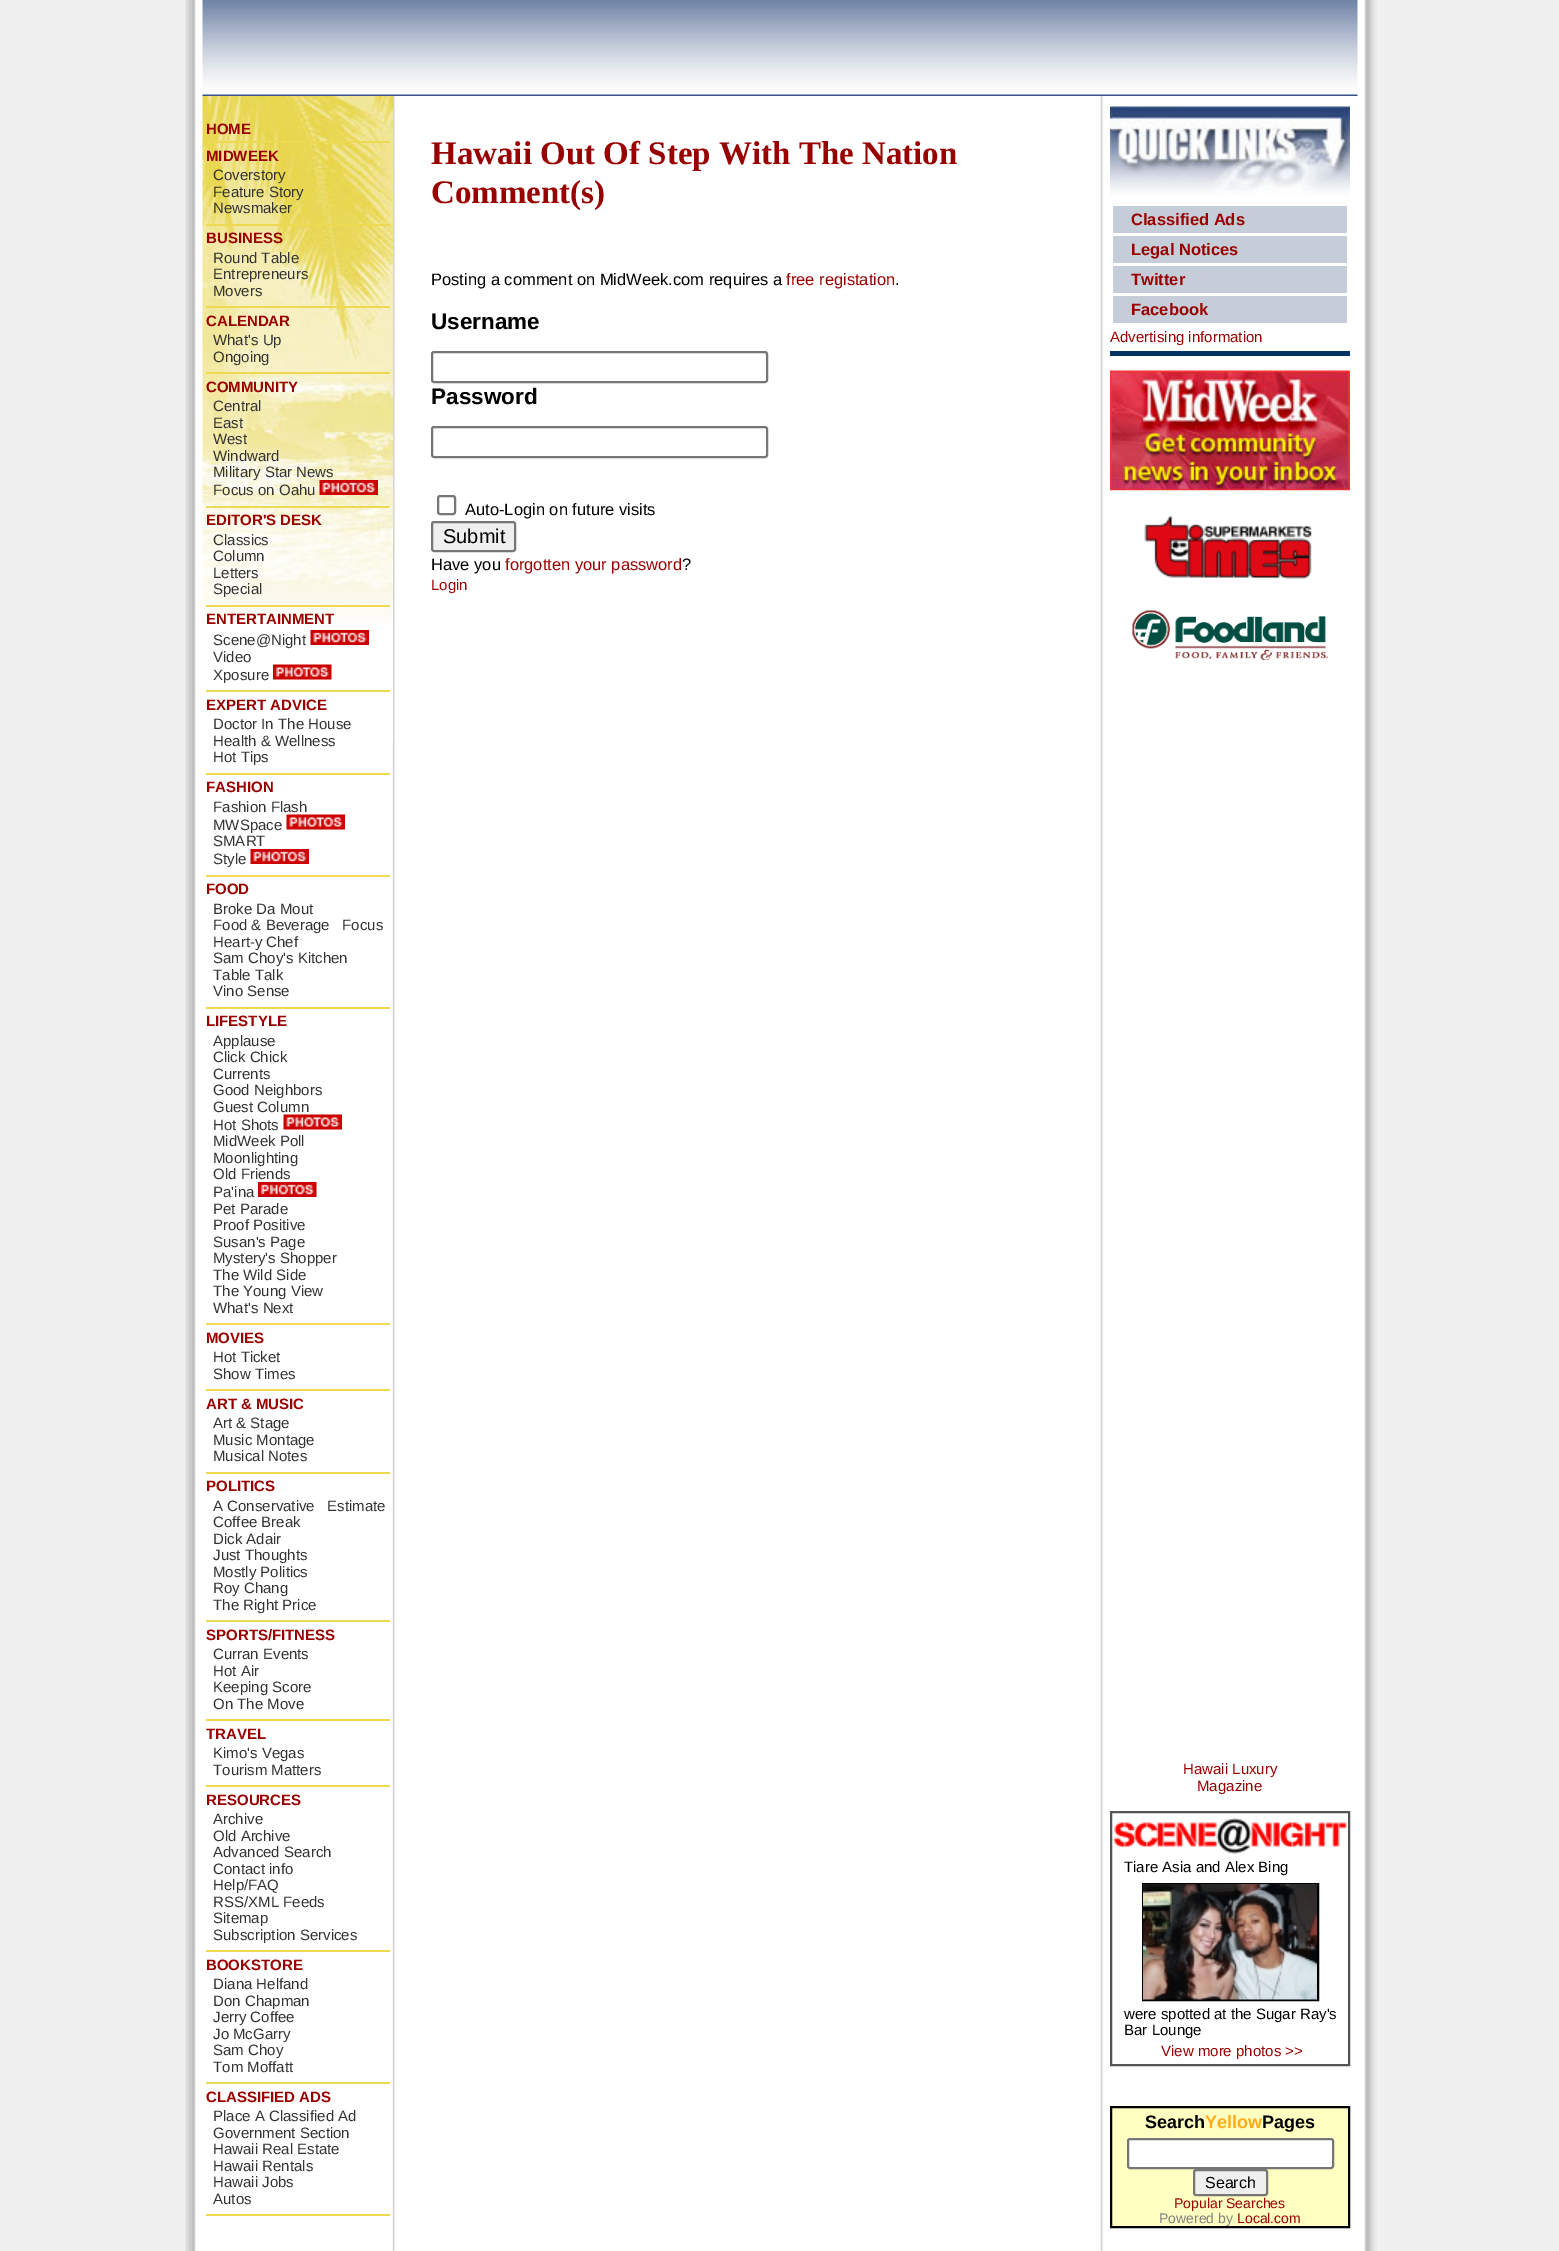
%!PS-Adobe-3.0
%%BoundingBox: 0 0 1559 2251
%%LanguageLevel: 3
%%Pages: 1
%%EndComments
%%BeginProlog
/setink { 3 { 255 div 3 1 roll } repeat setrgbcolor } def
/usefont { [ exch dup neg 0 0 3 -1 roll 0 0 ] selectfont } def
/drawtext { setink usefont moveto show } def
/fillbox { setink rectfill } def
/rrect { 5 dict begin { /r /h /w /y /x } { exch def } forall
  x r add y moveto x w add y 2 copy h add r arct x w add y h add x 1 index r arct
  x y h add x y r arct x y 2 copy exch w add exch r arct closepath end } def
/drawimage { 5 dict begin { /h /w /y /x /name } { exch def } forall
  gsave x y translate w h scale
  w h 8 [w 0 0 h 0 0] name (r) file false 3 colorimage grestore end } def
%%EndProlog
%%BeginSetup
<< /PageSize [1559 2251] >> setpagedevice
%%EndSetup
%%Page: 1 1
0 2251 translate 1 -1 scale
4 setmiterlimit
0 0 1559 2251 240 240 240 fillbox
(assets/img1.rgb) 185 0 1192 2251 drawimage
(assets/img2.rgb) 202 0 1156 96 drawimage
(assets/img3.rgb) 202 96 191 645 drawimage
206 141 184 2 237 217 82 fillbox
(HOME) 206 134 /LiberationSans-Bold 15 153 0 0 drawtext
206 224 184 2 237 217 82 fillbox
(MIDWEEK) 206 161 /LiberationSans-Bold 15 153 0 0 drawtext
(Coverstory) 213 180 /LiberationSans-Regular 15 51 51 51 drawtext
(Feature Story) 213 197 /LiberationSans-Regular 15 51 51 51 drawtext
(Newsmaker) 213 213 /LiberationSans-Regular 15 51 51 51 drawtext
206 306 184 2 237 217 82 fillbox
(BUSINESS) 206 243 /LiberationSans-Bold 15 153 0 0 drawtext
(Round Table) 213 263 /LiberationSans-Regular 15 51 51 51 drawtext
(Entrepreneurs) 213 279 /LiberationSans-Regular 15 51 51 51 drawtext
(Movers) 213 296 /LiberationSans-Regular 15 51 51 51 drawtext
206 372 184 2 237 217 82 fillbox
(CALENDAR) 206 326 /LiberationSans-Bold 15 153 0 0 drawtext
(What's Up) 213 345 /LiberationSans-Regular 15 51 51 51 drawtext
(Ongoing) 213 362 /LiberationSans-Regular 15 51 51 51 drawtext
206 506 184 2 237 217 82 fillbox
(COMMUNITY) 206 392 /LiberationSans-Bold 15 153 0 0 drawtext
(Central) 213 411 /LiberationSans-Regular 15 51 51 51 drawtext
(East) 213 428 /LiberationSans-Regular 15 51 51 51 drawtext
(West) 213 444 /LiberationSans-Regular 15 51 51 51 drawtext
(Windward) 213 461 /LiberationSans-Regular 15 51 51 51 drawtext
(Military Star News) 213 477 /LiberationSans-Regular 15 51 51 51 drawtext
(Focus on Oahu) 213 495 /LiberationSans-Regular 15 51 51 51 drawtext
(assets/img4.rgb) 319 480 59 15 drawimage
206 605 184 2 237 217 82 fillbox
(EDITOR'S DESK) 206 525 /LiberationSans-Bold 15 153 0 0 drawtext
(Classics) 213 545 /LiberationSans-Regular 15 51 51 51 drawtext
(Column) 213 561 /LiberationSans-Regular 15 51 51 51 drawtext
(Letters) 213 578 /LiberationSans-Regular 15 51 51 51 drawtext
(Special) 213 594 /LiberationSans-Regular 15 51 51 51 drawtext
206 690 184 2 237 217 82 fillbox
(ENTERTAINMENT) 206 624 /LiberationSans-Bold 15 153 0 0 drawtext
(Scene@Night) 213 645 /LiberationSans-Regular 15 51 51 51 drawtext
(assets/img5.rgb) 310 630 59 15 drawimage
(Video) 213 662 /LiberationSans-Regular 15 51 51 51 drawtext
(Xposure) 213 680 /LiberationSans-Regular 15 51 51 51 drawtext
(assets/img6.rgb) 273 664 59 16 drawimage
206 773 184 2 237 217 82 fillbox
(EXPERT ADVICE) 206 710 /LiberationSans-Bold 15 153 0 0 drawtext
(Doctor In The House) 213 729 /LiberationSans-Regular 15 51 51 51 drawtext
(Health & Wellness) 213 746 /LiberationSans-Regular 15 51 51 51 drawtext
(Hot Tips) 213 762 /LiberationSans-Regular 15 51 51 51 drawtext
206 875 184 2 237 217 82 fillbox
(FASHION) 206 792 /LiberationSans-Bold 15 153 0 0 drawtext
(Fashion Flash) 213 812 /LiberationSans-Regular 15 51 51 51 drawtext
(MWSpace) 213 830 /LiberationSans-Regular 15 51 51 51 drawtext
(assets/img7.rgb) 286 814 59 16 drawimage
(SMART) 213 846 /LiberationSans-Regular 15 51 51 51 drawtext
(Style) 213 864 /LiberationSans-Regular 15 51 51 51 drawtext
(assets/img5.rgb) 250 849 59 15 drawimage
206 1007 184 2 237 217 82 fillbox
(FOOD) 206 894 /LiberationSans-Bold 15 153 0 0 drawtext
(Broke Da Mout) 213 914 /LiberationSans-Regular 15 51 51 51 drawtext
(Food & Beverage   Focus) 213 930 /LiberationSans-Regular 15 51 51 51 drawtext
(Heart-y Chef) 213 947 /LiberationSans-Regular 15 51 51 51 drawtext
(Sam Choy's Kitchen) 213 963 /LiberationSans-Regular 15 51 51 51 drawtext
(Table Talk) 213 980 /LiberationSans-Regular 15 51 51 51 drawtext
(Vino Sense) 213 996 /LiberationSans-Regular 15 51 51 51 drawtext
206 1323 184 2 237 217 82 fillbox
(LIFESTYLE) 206 1026 /LiberationSans-Bold 15 153 0 0 drawtext
(Applause) 213 1046 /LiberationSans-Regular 15 51 51 51 drawtext
(Click Chick) 213 1062 /LiberationSans-Regular 15 51 51 51 drawtext
(Currents) 213 1079 /LiberationSans-Regular 15 51 51 51 drawtext
(Good Neighbors) 213 1095 /LiberationSans-Regular 15 51 51 51 drawtext
(Guest Column) 213 1112 /LiberationSans-Regular 15 51 51 51 drawtext
(Hot Shots) 213 1130 /LiberationSans-Regular 15 51 51 51 drawtext
(assets/img7.rgb) 283 1114 59 16 drawimage
(MidWeek Poll) 213 1146 /LiberationSans-Regular 15 51 51 51 drawtext
(Moonlighting) 213 1163 /LiberationSans-Regular 15 51 51 51 drawtext
(Old Friends) 213 1179 /LiberationSans-Regular 15 51 51 51 drawtext
(Pa'ina) 213 1197 /LiberationSans-Regular 15 51 51 51 drawtext
(assets/img8.rgb) 258 1182 59 15 drawimage
(Pet Parade) 213 1214 /LiberationSans-Regular 15 51 51 51 drawtext
(Proof Positive) 213 1230 /LiberationSans-Regular 15 51 51 51 drawtext
(Susan's Page) 213 1247 /LiberationSans-Regular 15 51 51 51 drawtext
(Mystery's Shopper) 213 1263 /LiberationSans-Regular 15 51 51 51 drawtext
(The Wild Side) 213 1280 /LiberationSans-Regular 15 51 51 51 drawtext
(The Young View) 213 1296 /LiberationSans-Regular 15 51 51 51 drawtext
(What's Next) 213 1313 /LiberationSans-Regular 15 51 51 51 drawtext
206 1389 184 2 237 217 82 fillbox
(MOVIES) 206 1343 /LiberationSans-Bold 15 153 0 0 drawtext
(Hot Ticket) 213 1362 /LiberationSans-Regular 15 51 51 51 drawtext
(Show Times) 213 1379 /LiberationSans-Regular 15 51 51 51 drawtext
206 1472 184 2 237 217 82 fillbox
(ART & MUSIC) 206 1409 /LiberationSans-Bold 15 153 0 0 drawtext
(Art & Stage) 213 1428 /LiberationSans-Regular 15 51 51 51 drawtext
(Music Montage) 213 1445 /LiberationSans-Regular 15 51 51 51 drawtext
(Musical Notes) 213 1461 /LiberationSans-Regular 15 51 51 51 drawtext
206 1620 184 2 237 217 82 fillbox
(POLITICS) 206 1491 /LiberationSans-Bold 15 153 0 0 drawtext
(A Conservative   Estimate) 213 1511 /LiberationSans-Regular 15 51 51 51 drawtext
(Coffee Break) 213 1527 /LiberationSans-Regular 15 51 51 51 drawtext
(Dick Adair) 213 1544 /LiberationSans-Regular 15 51 51 51 drawtext
(Just Thoughts) 213 1560 /LiberationSans-Regular 15 51 51 51 drawtext
(Mostly Politics) 213 1577 /LiberationSans-Regular 15 51 51 51 drawtext
(Roy Chang) 213 1593 /LiberationSans-Regular 15 51 51 51 drawtext
(The Right Price) 213 1610 /LiberationSans-Regular 15 51 51 51 drawtext
206 1719 184 2 237 217 82 fillbox
(SPORTS/FITNESS) 206 1640 /LiberationSans-Bold 15 153 0 0 drawtext
(Curran Events) 213 1659 /LiberationSans-Regular 15 51 51 51 drawtext
(Hot Air) 213 1676 /LiberationSans-Regular 15 51 51 51 drawtext
(Keeping Score) 213 1692 /LiberationSans-Regular 15 51 51 51 drawtext
(On The Move) 213 1709 /LiberationSans-Regular 15 51 51 51 drawtext
206 1785 184 2 237 217 82 fillbox
(TRAVEL) 206 1739 /LiberationSans-Bold 15 153 0 0 drawtext
(Kimo's Vegas) 213 1758 /LiberationSans-Regular 15 51 51 51 drawtext
(Tourism Matters) 213 1775 /LiberationSans-Regular 15 51 51 51 drawtext
206 1950 184 2 237 217 82 fillbox
(RESOURCES) 206 1805 /LiberationSans-Bold 15 153 0 0 drawtext
(Archive) 213 1824 /LiberationSans-Regular 15 51 51 51 drawtext
(Old Archive) 213 1841 /LiberationSans-Regular 15 51 51 51 drawtext
(Advanced Search) 213 1857 /LiberationSans-Regular 15 51 51 51 drawtext
(Contact info) 213 1874 /LiberationSans-Regular 15 51 51 51 drawtext
(Help/FAQ) 213 1890 /LiberationSans-Regular 15 51 51 51 drawtext
(RSS/XML Feeds) 213 1907 /LiberationSans-Regular 15 51 51 51 drawtext
(Sitemap) 213 1923 /LiberationSans-Regular 15 51 51 51 drawtext
(Subscription Services) 213 1940 /LiberationSans-Regular 15 51 51 51 drawtext
206 2082 184 2 237 217 82 fillbox
(BOOKSTORE) 206 1970 /LiberationSans-Bold 15 153 0 0 drawtext
(Diana Helfand) 213 1989 /LiberationSans-Regular 15 51 51 51 drawtext
(Don Chapman) 213 2006 /LiberationSans-Regular 15 51 51 51 drawtext
(Jerry Coffee) 213 2022 /LiberationSans-Regular 15 51 51 51 drawtext
(Jo McGarry) 213 2039 /LiberationSans-Regular 15 51 51 51 drawtext
(Sam Choy) 213 2055 /LiberationSans-Regular 15 51 51 51 drawtext
(Tom Moffatt) 213 2072 /LiberationSans-Regular 15 51 51 51 drawtext
206 2214 184 2 237 217 82 fillbox
(CLASSIFIED ADS) 206 2102 /LiberationSans-Bold 15 153 0 0 drawtext
(Place A Classified Ad) 213 2121 /LiberationSans-Regular 15 51 51 51 drawtext
(Government Section) 213 2138 /LiberationSans-Regular 15 51 51 51 drawtext
(Hawaii Real Estate) 213 2154 /LiberationSans-Regular 15 51 51 51 drawtext
(Hawaii Rentals) 213 2171 /LiberationSans-Regular 15 51 51 51 drawtext
(Hawaii Jobs) 213 2187 /LiberationSans-Regular 15 51 51 51 drawtext
(Autos) 213 2204 /LiberationSans-Regular 15 51 51 51 drawtext
(Hawaii Out Of Step With The Nation) 431 164 /LiberationSerif-Bold 33 153 0 0 drawtext
(Comment\(s\)) 431 203 /LiberationSerif-Bold 33 153 0 0 drawtext
(Posting a comment on MidWeek.com requires a) 431 285 /LiberationSans-Regular 16.5 0 0 0 drawtext
(free registation) 786 285 /LiberationSans-Regular 16.5 153 0 0 drawtext
(.) 895 285 /LiberationSans-Regular 16.5 0 0 0 drawtext
(Username) 431 329 /LiberationSans-Bold 22.5 0 0 0 drawtext
118 118 118 setink
2 setlinewidth
432 352 335 30 2 rrect stroke
(Password) 431 404 /LiberationSans-Bold 22.5 0 0 0 drawtext
118 118 118 setink
432 427 335 30 2 rrect stroke
438 496 17 18 2 rrect stroke
(Auto-Login on future visits) 465 515 /LiberationSans-Regular 16.5 0 0 0 drawtext
239 239 239 setink
432 522 83 29 2 rrect gsave fill grestore
118 118 118 setink
stroke
(Submit) 443 543 /LiberationSans-Regular 20 0 0 0 drawtext
(Have you) 431 570 /LiberationSans-Regular 16.5 0 0 0 drawtext
(forgotten your password) 505 570 /LiberationSans-Regular 16.5 153 0 0 drawtext
(?) 682 570 /LiberationSans-Regular 16.5 0 0 0 drawtext
(Login) 431 590 /LiberationSans-Regular 15 153 0 0 drawtext
1110 351 240 5 0 51 102 fillbox
(assets/img9.rgb) 1110 106 240 90 drawimage
1113 206 234 27 197 205 217 fillbox
(Classified Ads) 1131 225 /LiberationSans-Bold 16.5 153 0 0 drawtext
1113 236 234 27 197 205 217 fillbox
(Legal Notices) 1131 255 /LiberationSans-Bold 16.5 153 0 0 drawtext
1113 266 234 27 197 205 217 fillbox
(Twitter) 1131 285 /LiberationSans-Bold 16.5 153 0 0 drawtext
1113 296 234 27 197 205 217 fillbox
(Facebook) 1131 315 /LiberationSans-Bold 16.5 153 0 0 drawtext
(Advertising information) 1110 342 /LiberationSans-Regular 15 153 0 0 drawtext
(assets/img10.rgb) 1110 370 240 121 drawimage
(assets/img11.rgb) 1110 490 240 90 drawimage
(assets/img12.rgb) 1132 610 196 50 drawimage
(Hawaii Luxury) 1183 1774 /LiberationSans-Regular 15 153 0 0 drawtext
(Magazine) 1197 1791 /LiberationSans-Regular 15 153 0 0 drawtext
84 84 84 setink
1111 1812 238 253 rectstroke
(assets/img13.rgb) 1113 1817 234 38 drawimage
(Tiare Asia and Alex Bing) 1124 1872 /LiberationSans-Regular 15 0 0 0 drawtext
1143 1884 175 116 rectstroke
(assets/img14.rgb) 1143 1884 174 116 drawimage
(were spotted at the Sugar Ray's) 1124 2019 /LiberationSans-Regular 15 0 0 0 drawtext
(Bar Lounge) 1124 2035 /LiberationSans-Regular 15 0 0 0 drawtext
(View more photos >>) 1161 2056 /LiberationSans-Regular 15 153 0 0 drawtext
255 255 193 setink
1111 2107 moveto 1349 2107 lineto 1349 2227 lineto 1111 2227 lineto closepath gsave fill grestore
0 0 0 setink
stroke
(Search) 1145 2128 /LiberationSans-Bold 18 0 0 0 drawtext
(Yellow) 1205 2128 /LiberationSans-Bold 18 255 171 23 drawtext
(Pages) 1262 2128 /LiberationSans-Bold 18 0 0 0 drawtext
255 255 255 setink
1128 2139 205 29 2 rrect gsave fill grestore
118 118 118 setink
stroke
239 239 239 setink
1194 2170 73 25 2 rrect gsave fill grestore
118 118 118 setink
stroke
(Search) 1205 2188 /LiberationSans-Regular 16 0 0 0 drawtext
(Popular Searches) 1174 2208 /LiberationSans-Regular 14 153 0 0 drawtext
(Powered by) 1159 2223 /LiberationSans-Regular 14 128 128 128 drawtext
(Local.com) 1237 2223 /LiberationSans-Regular 14 153 0 0 drawtext
showpage
%%EOF
